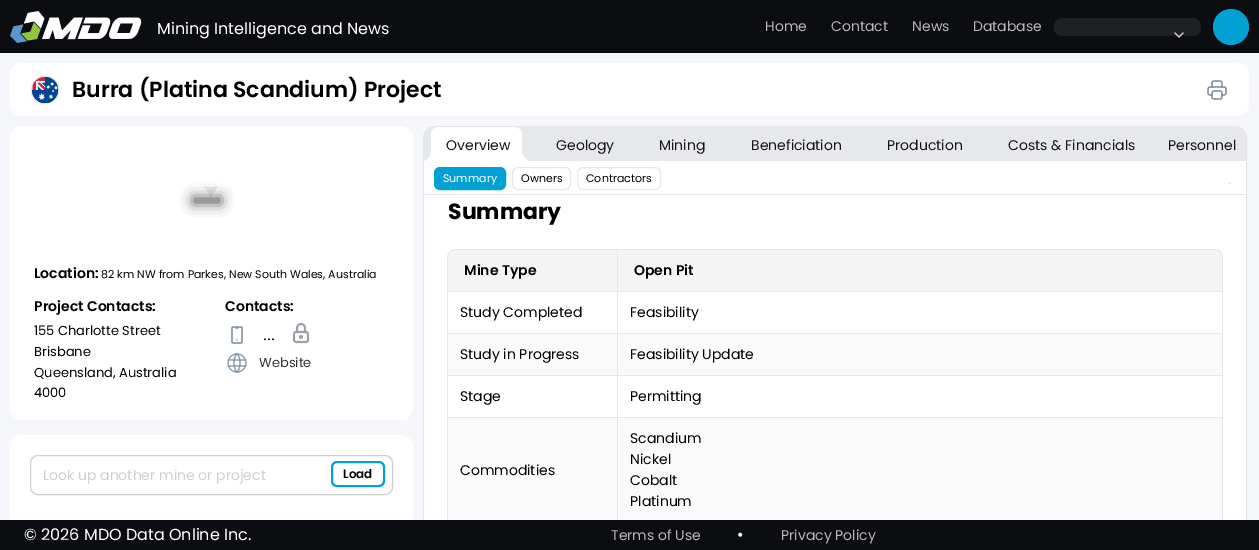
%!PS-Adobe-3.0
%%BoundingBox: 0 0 1259 550
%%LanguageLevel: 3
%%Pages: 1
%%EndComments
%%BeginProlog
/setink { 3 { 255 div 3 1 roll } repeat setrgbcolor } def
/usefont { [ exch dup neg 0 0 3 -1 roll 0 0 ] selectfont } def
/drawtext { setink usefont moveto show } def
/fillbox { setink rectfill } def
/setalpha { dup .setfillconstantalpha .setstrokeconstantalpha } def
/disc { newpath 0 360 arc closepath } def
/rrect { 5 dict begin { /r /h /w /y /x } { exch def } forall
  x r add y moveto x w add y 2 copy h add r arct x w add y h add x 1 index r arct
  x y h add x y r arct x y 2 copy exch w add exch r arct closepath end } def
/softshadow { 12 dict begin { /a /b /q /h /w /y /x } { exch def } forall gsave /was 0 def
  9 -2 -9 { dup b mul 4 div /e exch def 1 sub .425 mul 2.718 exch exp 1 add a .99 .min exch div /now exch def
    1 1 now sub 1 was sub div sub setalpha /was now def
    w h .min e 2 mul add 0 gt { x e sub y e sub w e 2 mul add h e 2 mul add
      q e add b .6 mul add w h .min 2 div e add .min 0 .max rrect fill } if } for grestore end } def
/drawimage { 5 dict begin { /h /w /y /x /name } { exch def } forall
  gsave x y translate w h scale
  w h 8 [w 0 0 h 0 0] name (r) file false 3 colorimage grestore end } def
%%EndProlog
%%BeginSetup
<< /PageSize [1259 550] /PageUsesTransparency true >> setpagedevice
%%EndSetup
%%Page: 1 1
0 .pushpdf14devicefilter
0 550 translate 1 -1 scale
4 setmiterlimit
0 0 1259 550 246 247 250 fillbox
0 0 1259 53 12 13 17 fillbox
(assets/img1.rgb) 10 11 132 32 drawimage
(Mining Intelligence and News) 157 34 /Poppins-Regular 16 255 255 255 drawtext
(Home) 765 31 /Poppins-Regular 14 182 182 184 drawtext
(Contact) 831 31 /Poppins-Regular 14 182 182 184 drawtext
(News) 912 31 /Poppins-Regular 14 182 182 184 drawtext
(Database) 973 31 /Poppins-Regular 14 182 182 184 drawtext
31 32 36 setink
1054 18 147 18 8 rrect fill
(assets/img2.rgb) 1174 32 10 6 drawimage
2 161 211 setink
1231 27 18 disc fill
255 255 255 setink
10 63 1239 53 12 rrect fill
(assets/img3.rgb) 30 75 30 30 drawimage
(Burra \(Platina Scandium\) Project) 72 97 /Poppins-SemiBold 22 0 0 0 drawtext
(assets/img4.rgb) 1207 80 20 20 drawimage
255 255 255 setink
10 126 403 294 12 rrect fill
235 235 235 setink
204 186 moveto 218 186 lineto 211 197 lineto closepath fill
255 255 255 setink
211 159 moveto 229.5 159 229.5 187 211 187 curveto 192.5 187 192.5 159 211 159 curveto closepath fill
0 0 0 setink
195 199 24 3 0 7 0.79 softshadow
(Location:) 34 278 /Poppins-SemiBold 14 0 0 0 drawtext
(82 km NW from Parkes, New South Wales, Australia) 101 278 /Poppins-Regular 11 0 0 0 drawtext
(Project Contacts:) 34 311 /Poppins-SemiBold 14 0 0 0 drawtext
(155 Charlotte Street) 34 335 /Poppins-Regular 13 0 0 0 drawtext
(Brisbane) 34 356 /Poppins-Regular 13 0 0 0 drawtext
(Queensland, Australia) 34 377 /Poppins-Regular 13 0 0 0 drawtext
(4000) 34 397 /Poppins-Regular 13 0 0 0 drawtext
(Contacts:) 225 311 /Poppins-SemiBold 14 0 0 0 drawtext
(assets/img5.rgb) 231 326 12 18 drawimage
(...) 263 340 /LiberationSerif-Regular 16 0 0 0 drawtext
(assets/img6.rgb) 292 322 18 22 drawimage
(assets/img7.rgb) 227 353 20 20 drawimage
(Website) 259 367 /Poppins-Regular 13 51 51 51 drawtext
255 255 255 setink
22 435 moveto 401 435 lineto 407.5 435 413 440.5 413 447 curveto 413 520 lineto 10 520 lineto 10 447 lineto 10 440.5 15.5 435 22 435 curveto closepath fill
207 207 207 setink
30.5 455.5 362 39 7.5 rrect stroke
(Look up another mine or project) 43 480 /Poppins-Regular 14 207 207 207 drawtext
2 161 211 setink
2 setlinewidth
332 462 52 24 5 rrect stroke
(Load) 343 478 /Poppins-SemiBold 12 0 0 0 drawtext
0 520 1259 30 12 13 17 fillbox
gsave
0 116 1259 404 rectclip
231 231 231 setink
1 setlinewidth
423.5 126.5 823 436 11.5 rrect stroke
grestore
231 232 236 setink
435 127 moveto 1235 127 lineto 1241 127 1246 132 1246 138 curveto 1246 161 lineto 424 161 lineto 424 138 lineto 424 132 429 127 435 127 curveto closepath fill
255 255 255 setink
439 127 moveto 514 127 lineto 518.5 127 522 130.5 522 135 curveto 522 163 lineto 431 163 lineto 431 135 lineto 431 130.5 434.5 127 439 127 curveto closepath fill
(assets/img8.rgb) 424 152 7 9 drawimage
(assets/img9.rgb) 522 152 6 9 drawimage
(Overview) 446 150 /Poppins-Regular 14 21 21 21 drawtext
424 161 822 33 255 255 255 fillbox
424 194 822 1 231 231 231 fillbox
2 161 211 setink
434.5 167.5 71 22 5.5 rrect gsave fill grestore
1 setlinewidth
stroke
(Summary) 443 182 /Poppins-Regular 11 255 255 255 drawtext
231 232 236 setink
512.5 167.5 58 22 5.5 rrect stroke
(Owners) 521 182 /Poppins-Regular 11 0 0 0 drawtext
231 232 236 setink
577.5 167.5 83 22 5.5 rrect stroke
(Contractors) 586 182 /Poppins-Regular 11 0 0 0 drawtext
1229 183 1 1 200 201 202 fillbox
(Geology) 556 150 /Poppins-Regular 14 21 21 21 drawtext
(Mining) 659 150 /Poppins-Regular 14 21 21 21 drawtext
(Beneficiation) 751 150 /Poppins-Regular 14 21 21 21 drawtext
(Production) 887 150 /Poppins-Regular 14 21 21 21 drawtext
(Costs & Financials) 1008 150 /Poppins-Regular 14 21 21 21 drawtext
(Personnel) 1168 150 /Poppins-Regular 14 21 21 21 drawtext
424 195 822 325 255 255 255 fillbox
(Summary) 448 219 /Poppins-Bold 22 0 0 0 drawtext
gsave
424 195 822 325 rectclip
231 231 231 setink
456 249 moveto 451 249 447 253 447 258 curveto 447 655 lineto 448 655 lineto 448 258 lineto 448 254 452 250 456 250 curveto 1214 250 lineto 1218 250 1222 254 1222 258 curveto 1222 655 lineto 1223 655 lineto 1223 258 lineto 1223 253 1219 249 1214 249 curveto closepath fill
grestore
244 244 244 setink
456 250 moveto 618 250 lineto 618 292 lineto 448 292 lineto 448 258 lineto 448 253.5 451.5 250 456 250 curveto closepath fill
617 250 1 42 231 231 231 fillbox
448 291 170 1 231 231 231 fillbox
(Mine Type) 464 275 /Poppins-SemiBold 14 0 0 0 drawtext
244 244 244 setink
618 250 moveto 1214 250 lineto 1218.5 250 1222 253.5 1222 258 curveto 1222 292 lineto 618 292 lineto closepath fill
618 291 604 1 231 231 231 fillbox
(Open Pit) 634 275 /Poppins-SemiBold 14 0 0 0 drawtext
617 292 1 228 231 231 231 fillbox
448 333 170 1 231 231 231 fillbox
(Study Completed) 460 317 /Poppins-Regular 14 0 0 0 drawtext
618 333 604 1 231 231 231 fillbox
(Feasibility) 630 317 /Poppins-Regular 14 0 0 0 drawtext
448 334 169 41 250 250 250 fillbox
448 375 170 1 231 231 231 fillbox
(Study in Progress) 460 359 /Poppins-Regular 14 0 0 0 drawtext
618 334 604 41 250 250 250 fillbox
618 375 604 1 231 231 231 fillbox
(Feasibility Update) 630 359 /Poppins-Regular 14 0 0 0 drawtext
448 417 170 1 231 231 231 fillbox
(Stage) 460 401 /Poppins-Regular 14 0 0 0 drawtext
618 417 604 1 231 231 231 fillbox
(Permitting) 630 401 /Poppins-Regular 14 0 0 0 drawtext
448 418 169 102 250 250 250 fillbox
(Commodities) 460 475 /Poppins-Regular 14 0 0 0 drawtext
618 418 604 102 250 250 250 fillbox
(Scandium) 630 443 /Poppins-Regular 14 0 0 0 drawtext
(Nickel) 630 464 /Poppins-Regular 14 0 0 0 drawtext
(Cobalt) 630 485 /Poppins-Regular 14 0 0 0 drawtext
(Platinum) 630 506 /Poppins-Regular 14 0 0 0 drawtext
(© 2026 MDO Data Online Inc.) 24 540 /Poppins-Regular 16 255 255 255 drawtext
(Terms of Use) 611 540 /Poppins-Regular 14 182 182 184 drawtext
(•) 737 540 /Poppins-Regular 16 255 255 255 drawtext
(Privacy Policy) 781 540 /Poppins-Regular 14 182 182 184 drawtext
.poppdf14devicefilter showpage
%%EOF
